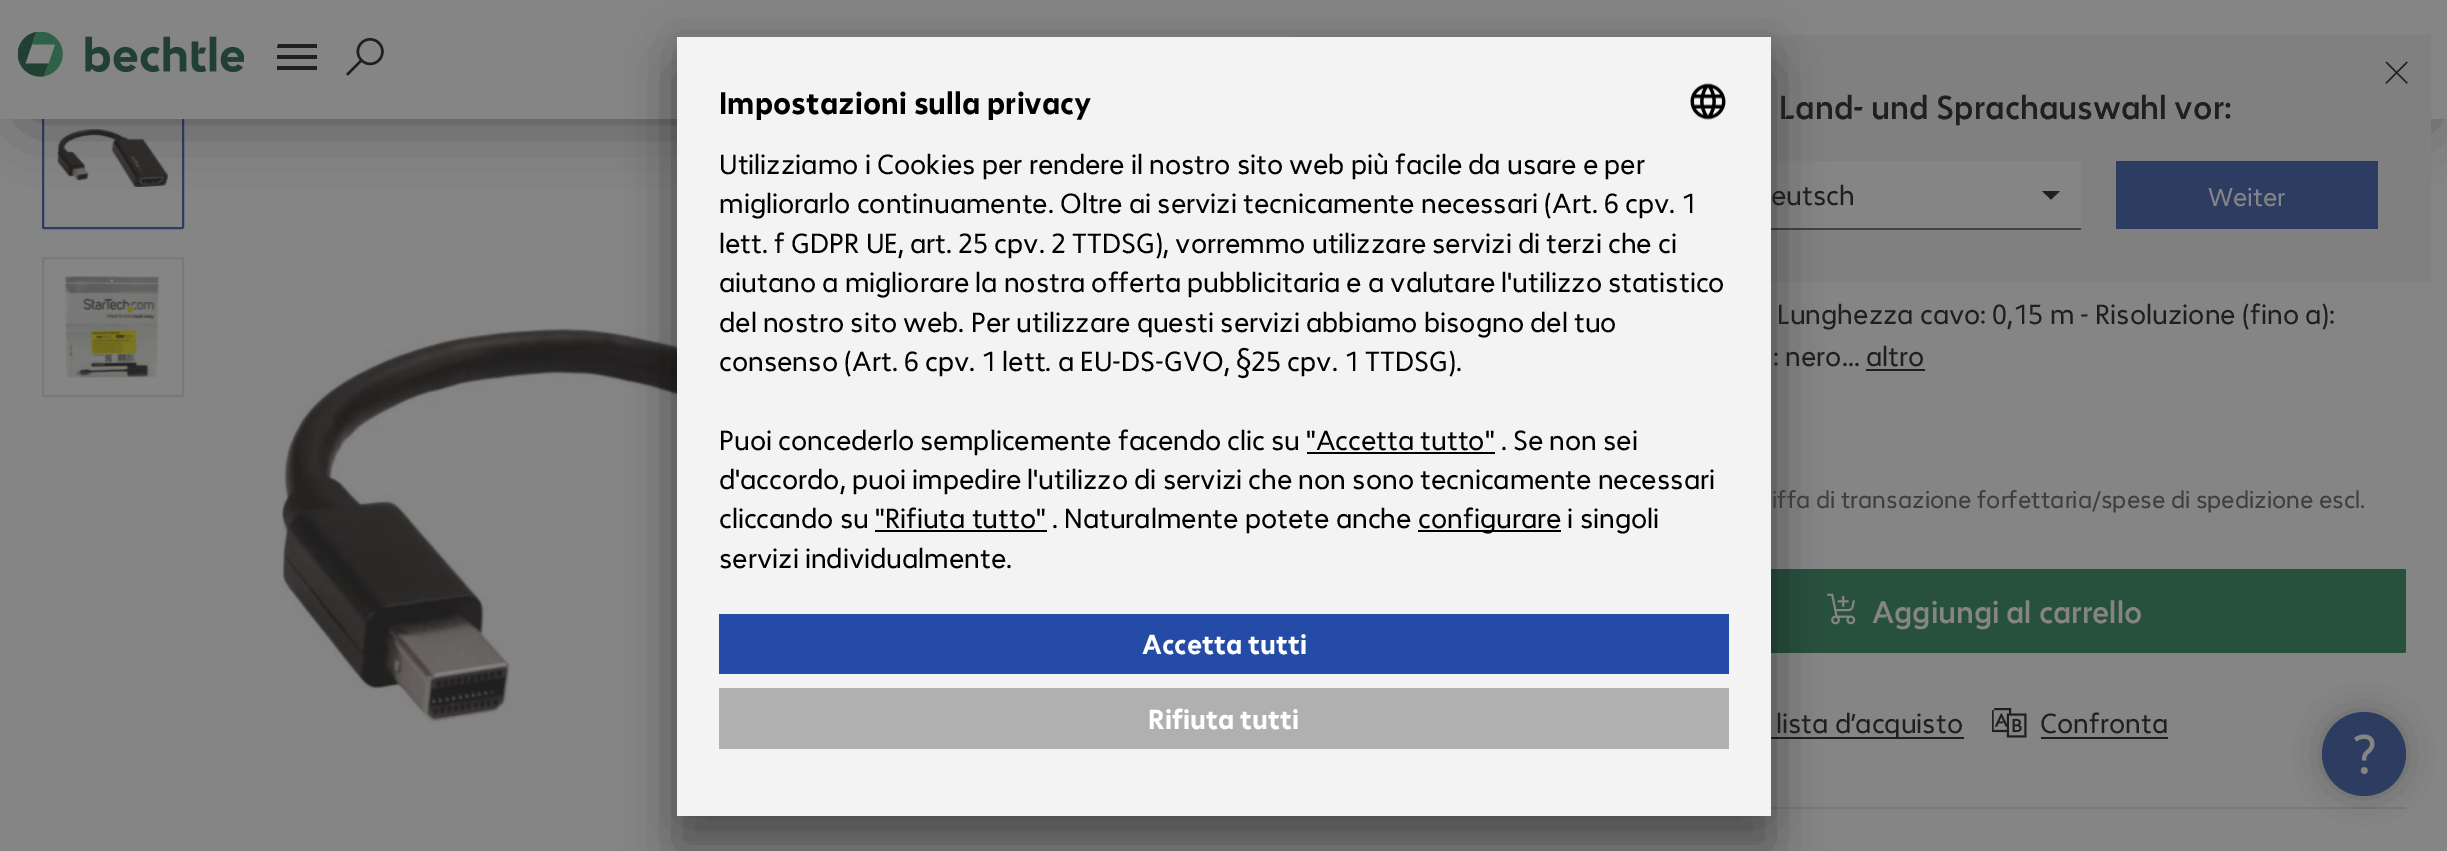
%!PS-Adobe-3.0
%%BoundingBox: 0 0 2447 851
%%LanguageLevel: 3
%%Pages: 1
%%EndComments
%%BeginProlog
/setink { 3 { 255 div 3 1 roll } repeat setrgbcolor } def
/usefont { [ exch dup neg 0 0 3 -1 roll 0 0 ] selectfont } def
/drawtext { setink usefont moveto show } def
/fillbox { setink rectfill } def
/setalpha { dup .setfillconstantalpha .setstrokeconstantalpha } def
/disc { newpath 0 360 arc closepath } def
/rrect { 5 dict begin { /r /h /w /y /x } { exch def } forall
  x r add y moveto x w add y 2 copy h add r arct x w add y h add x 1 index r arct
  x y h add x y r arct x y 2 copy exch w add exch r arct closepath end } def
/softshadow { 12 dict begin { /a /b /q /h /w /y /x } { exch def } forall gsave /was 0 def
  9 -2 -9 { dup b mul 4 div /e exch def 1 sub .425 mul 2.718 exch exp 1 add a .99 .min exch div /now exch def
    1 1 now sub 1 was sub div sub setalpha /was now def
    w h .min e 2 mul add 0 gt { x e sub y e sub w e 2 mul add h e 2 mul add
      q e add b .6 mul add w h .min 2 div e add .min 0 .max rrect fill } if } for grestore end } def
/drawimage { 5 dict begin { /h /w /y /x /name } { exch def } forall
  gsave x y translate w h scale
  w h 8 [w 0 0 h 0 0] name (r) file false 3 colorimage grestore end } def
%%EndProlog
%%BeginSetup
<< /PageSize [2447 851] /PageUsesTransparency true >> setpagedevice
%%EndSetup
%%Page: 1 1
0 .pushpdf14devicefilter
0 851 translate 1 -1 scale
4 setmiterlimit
0 0 2447 851 133 133 133 fillbox
45 61 97 setink
2 setlinewidth
43 89 140 139 1 rrect stroke
(assets/img5.rgb) 57 129 112 58 drawimage
31 31 31 setink
30 51 2396 66 0 32.5 0.52 softshadow
0 0 2447 119 133 133 133 fillbox
1293 35 1138 247 128 128 128 fillbox
1771 161 310 67 133 133 133 fillbox
1771 228 310 2 67 67 67 fillbox
(assets/img7.rgb) 282 328 395 445 drawimage
40 81 61 setink
1559 569 847 84 2 rrect fill
(assets/img8.rgb) 1826 593 30 32 drawimage
1771 737 193 2 31 31 31 fillbox
1771 807 635 2 121 121 121 fillbox
0 0 0 setink
677 72 1094 779 0 24.5 0.3 softshadow
677 46 1094 778 0 23 0.22 softshadow
677 37 1094 779 243 243 243 fillbox
(Impostazioni sulla privacy) 719 114 /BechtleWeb-Bold 31.5 0 0 0 drawtext
(assets/img1.rgb) 1690 83 36 37 drawimage
(Utilizziamo i Cookies per rendere il nostro sito web più facile da usare e per) 719 174 /BechtleWeb-Regular 28 0 0 0 drawtext
(migliorarlo continuamente. Oltre ai servizi tecnicamente necessari \(Art. 6 cpv. 1) 719 213 /BechtleWeb-Regular 28 0 0 0 drawtext
(lett. f GDPR UE, art. 25 cpv. 2 TTDSG\), vorremmo utilizzare servizi di terzi che ci) 719 253 /BechtleWeb-Regular 28 0 0 0 drawtext
(aiutano a migliorare la nostra offerta pubblicitaria e a valutare l'utilizzo statistico) 719 292 /BechtleWeb-Regular 28 0 0 0 drawtext
(del nostro sito web. Per utilizzare questi servizi abbiamo bisogno del tuo) 719 332 /BechtleWeb-Regular 28 0 0 0 drawtext
(consenso \(Art. 6 cpv. 1 lett. a EU-DS-GVO, §25 cpv. 1 TTDSG\).) 719 371 /BechtleWeb-Regular 28 0 0 0 drawtext
(Puoi concederlo semplicemente facendo clic su "Accetta tutto" . Se non sei) 719 450 /BechtleWeb-Regular 28 0 0 0 drawtext
1307 452 188 2 0 0 0 fillbox
(d'accordo, puoi impedire l'utilizzo di servizi che non sono tecnicamente necessari) 719 489 /BechtleWeb-Regular 28 0 0 0 drawtext
(cliccando su "Rifiuta tutto" . Naturalmente potete anche) 719 528 /BechtleWeb-Regular 28 0 0 0 drawtext
1418 530 143 2 0 0 0 fillbox
(configurare i singoli) 1418 528 /BechtleWeb-Regular 28 0 0 0 drawtext
875 530 172 2 0 0 0 fillbox
(servizi individualmente.) 719 568 /BechtleWeb-Regular 28 0 0 0 drawtext
719 614 1010 60 36 76 167 fillbox
(Accetta tutti) 1142 654 /BechtleWeb-Bold 28 255 255 255 drawtext
719 688 1010 61 176 176 176 fillbox
(Rifiuta tutti) 1148 729 /BechtleWeb-Bold 28 255 255 255 drawtext
(assets/img2.rgb) 18 32 226 45 drawimage
31 31 31 setink
278 44 moveto 317 44 lineto 317 48 lineto 277 48 lineto closepath fill
277 55 40 4 31 31 31 fillbox
277 66 40 4 31 31 31 fillbox
(assets/img3.rgb) 346 37 38 39 drawimage
(assets/img4.rgb) 2385 61 23 23 drawimage
(Land- und Sprachauswahl vor:) 1779 119 /BechtleWeb-Medium 33.6 31 31 31 drawtext
(eutsch) 1771 205 /BechtleWeb-Regular 28 31 31 31 drawtext
2042 191 moveto 2060 191 lineto 2051 199.5 lineto closepath fill
2116 161 262 68 45 61 97 fillbox
(Weiter) 2208 206 /BechtleWeb-Regular 26 133 133 133 drawtext
121 121 121 setink
43 258 140 138 1 rrect stroke
(assets/img6.rgb) 64 276 96 102 drawimage
(Lunghezza cavo: 0,15 m - Risoluzione \(fino a\):) 1777 324 /BechtleWeb-Regular 28 31 31 31 drawtext
(: nero... altro) 1773 366 /BechtleWeb-Regular 28 31 31 31 drawtext
1866 369 59 2 31 31 31 fillbox
(iffa di transazione forfettaria/spese di spedizione) 1772 508 /BechtleWeb-Regular 24.5 62 62 62 drawtext
(escl.) 2319 508 /BechtleWeb-Regular 24.5 62 62 62 drawtext
(Aggiungi al carrello) 1872 623 /BechtleWeb-Medium 31.5 133 133 133 drawtext
(lista d’acquisto) 1776 733 /BechtleWeb-Regular 28 31 31 31 drawtext
(assets/img9.rgb) 1992 708 35 30 drawimage
2041 737 127 2 31 31 31 fillbox
(Confronta) 2040 733 /BechtleWeb-Regular 28 31 31 31 drawtext
31 37 35 setink
2322 712 84 84 42 17.5 0.16 softshadow
2322 712 84 84 42 17.5 0.16 softshadow
45 61 97 setink
2364 754 42 disc fill
(assets/img10.rgb) 2354 734 21 40 drawimage
.poppdf14devicefilter showpage
%%EOF
